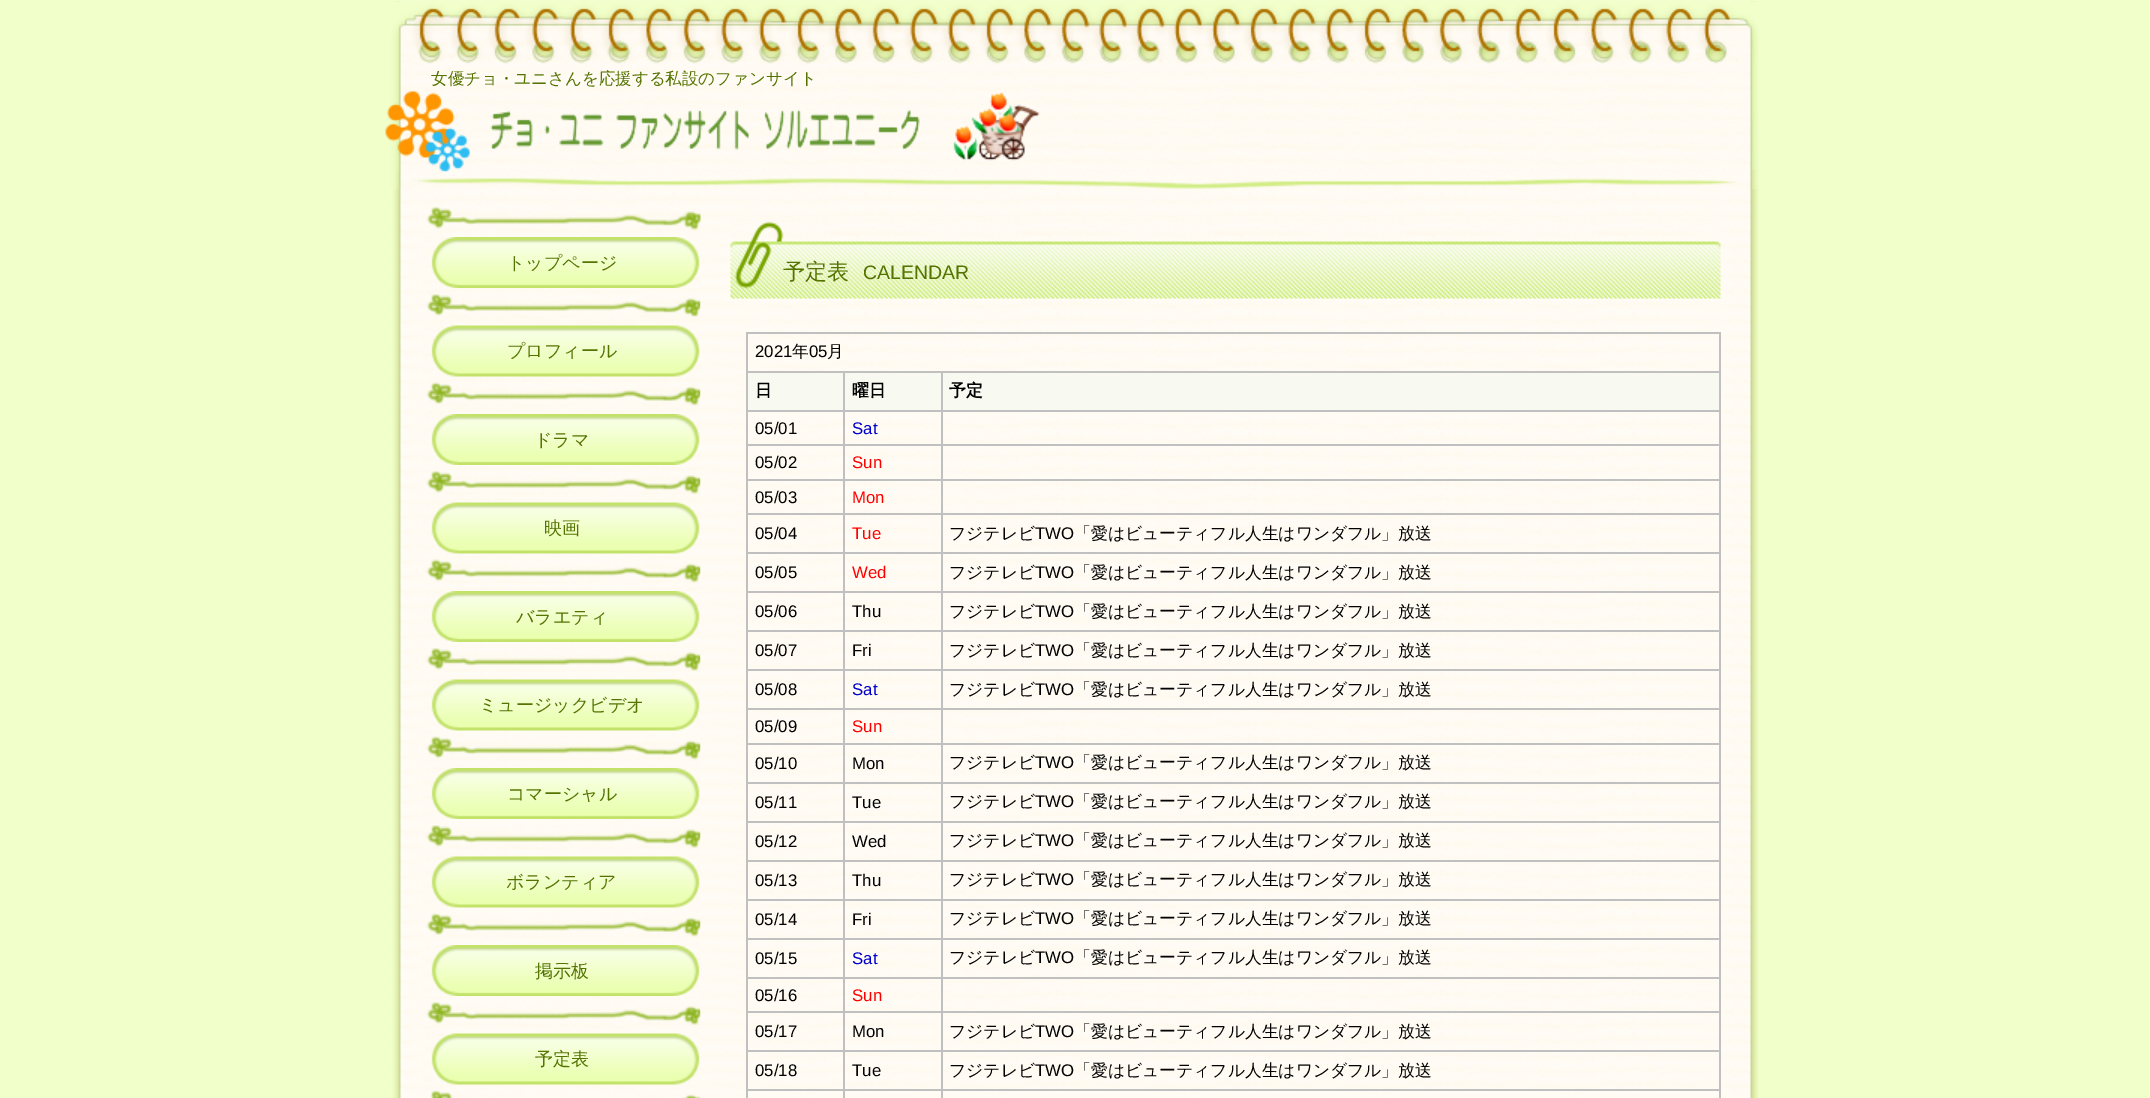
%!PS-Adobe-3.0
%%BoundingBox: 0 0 2150 1098
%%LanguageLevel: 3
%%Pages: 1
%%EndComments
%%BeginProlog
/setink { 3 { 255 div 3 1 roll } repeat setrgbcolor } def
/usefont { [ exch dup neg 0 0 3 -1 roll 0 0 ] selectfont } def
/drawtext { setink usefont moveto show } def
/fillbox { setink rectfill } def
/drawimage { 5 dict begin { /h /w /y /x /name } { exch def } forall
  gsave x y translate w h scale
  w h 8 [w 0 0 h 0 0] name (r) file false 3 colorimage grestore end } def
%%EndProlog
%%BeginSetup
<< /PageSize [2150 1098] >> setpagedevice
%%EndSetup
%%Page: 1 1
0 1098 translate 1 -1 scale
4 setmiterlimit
0 0 2150 1098 241 255 203 fillbox
(assets/img1.rgb) 392 1 1367 1097 drawimage
(assets/img2.rgb) 385 1 1374 188 drawimage
(女優チョ・ユニさんを応援する私設のファンサイト) 431 84 /WenQuanYiZenHei-Medium 16.5 84 115 0 drawtext
(assets/img3.rgb) 490 92 550 69 drawimage
(assets/img4.rgb) 423 207 278 24 drawimage
(assets/img5.rgb) 424 294 277 24 drawimage
(assets/img6.rgb) 423 237 277 51 drawimage
(トップページ) 507 269 /WenQuanYiZenHei-Medium 18 84 115 0 drawtext
(assets/img7.rgb) 423 382 278 25 drawimage
(assets/img8.rgb) 423 325 277 52 drawimage
(プロフィール) 507 357 /WenQuanYiZenHei-Medium 18 84 115 0 drawtext
(assets/img9.rgb) 423 471 278 24 drawimage
(assets/img6.rgb) 423 414 277 51 drawimage
(ドラマ) 534 446 /WenQuanYiZenHei-Medium 18 84 115 0 drawtext
(assets/img10.rgb) 423 559 278 25 drawimage
(assets/img11.rgb) 423 502 277 52 drawimage
(映画) 544 534 /WenQuanYiZenHei-Medium 18 84 115 0 drawtext
(assets/img12.rgb) 423 648 278 24 drawimage
(assets/img13.rgb) 424 591 276 51 drawimage
(バラエティ) 516 623 /WenQuanYiZenHei-Medium 18 84 115 0 drawtext
(assets/img14.rgb) 423 736 278 25 drawimage
(assets/img15.rgb) 424 679 276 52 drawimage
(ミュージックビデオ) 479 711 /WenQuanYiZenHei-Medium 18 84 115 0 drawtext
(assets/img16.rgb) 423 825 278 24 drawimage
(assets/img6.rgb) 423 768 277 51 drawimage
(コマーシャル) 507 800 /WenQuanYiZenHei-Medium 18 84 115 0 drawtext
(assets/img17.rgb) 423 913 278 25 drawimage
(assets/img18.rgb) 423 856 277 52 drawimage
(ボランティア) 506 888 /WenQuanYiZenHei-Medium 18 84 115 0 drawtext
(assets/img19.rgb) 423 1002 278 24 drawimage
(assets/img6.rgb) 423 945 277 51 drawimage
(掲示板) 535 977 /WenQuanYiZenHei-Medium 18 84 115 0 drawtext
(assets/img20.rgb) 425 1090 276 8 drawimage
(assets/img21.rgb) 423 1033 277 52 drawimage
(予定表) 535 1065 /WenQuanYiZenHei-Medium 18 84 115 0 drawtext
(assets/img22.rgb) 730 219 991 80 drawimage
(予定表) 783 279 /WenQuanYiZenHei-Medium 22 84 115 0 drawtext
(CALENDAR) 863 279 /LiberationSans-Regular 19.5 84 115 0 drawtext
1719 332 2 766 192 192 192 fillbox
746 332 2 766 192 192 192 fillbox
746 332 975 2 192 192 192 fillbox
(2021) 755 357 /LiberationSans-Regular 16.8 0 0 0 drawtext
(年) 792 357 /WenQuanYiZenHei-Medium 16.8 0 0 0 drawtext
(05) 809 357 /LiberationSans-Regular 16.8 0 0 0 drawtext
(月) 827 357 /WenQuanYiZenHei-Medium 16.8 0 0 0 drawtext
748 373 95 37 248 250 241 fillbox
941 371 780 2 192 192 192 fillbox
941 410 780 2 192 192 192 fillbox
941 444 780 2 192 192 192 fillbox
941 479 780 2 192 192 192 fillbox
941 513 780 2 192 192 192 fillbox
941 552 780 2 192 192 192 fillbox
941 591 780 2 192 192 192 fillbox
941 630 780 2 192 192 192 fillbox
941 669 780 2 192 192 192 fillbox
941 708 780 2 192 192 192 fillbox
941 743 780 2 192 192 192 fillbox
941 782 780 2 192 192 192 fillbox
941 821 780 2 192 192 192 fillbox
941 860 780 2 192 192 192 fillbox
941 899 780 2 192 192 192 fillbox
941 938 780 2 192 192 192 fillbox
941 977 780 2 192 192 192 fillbox
941 1011 780 2 192 192 192 fillbox
941 1050 780 2 192 192 192 fillbox
941 1089 780 2 192 192 192 fillbox
941 1089 2 9 192 192 192 fillbox
843 1089 99 2 192 192 192 fillbox
941 1050 2 41 192 192 192 fillbox
843 1050 99 2 192 192 192 fillbox
941 1011 2 41 192 192 192 fillbox
843 1011 99 2 192 192 192 fillbox
941 977 2 36 192 192 192 fillbox
843 977 99 2 192 192 192 fillbox
941 938 2 40 192 192 192 fillbox
843 938 99 2 192 192 192 fillbox
941 899 2 40 192 192 192 fillbox
843 899 99 2 192 192 192 fillbox
941 860 2 40 192 192 192 fillbox
843 860 99 2 192 192 192 fillbox
941 821 2 40 192 192 192 fillbox
843 821 99 2 192 192 192 fillbox
941 782 2 40 192 192 192 fillbox
843 782 99 2 192 192 192 fillbox
941 743 2 40 192 192 192 fillbox
843 743 99 2 192 192 192 fillbox
941 708 2 36 192 192 192 fillbox
843 708 99 2 192 192 192 fillbox
941 669 2 41 192 192 192 fillbox
843 669 99 2 192 192 192 fillbox
941 630 2 41 192 192 192 fillbox
843 630 99 2 192 192 192 fillbox
941 591 2 41 192 192 192 fillbox
843 591 99 2 192 192 192 fillbox
941 552 2 41 192 192 192 fillbox
843 552 99 2 192 192 192 fillbox
941 513 2 41 192 192 192 fillbox
843 513 99 2 192 192 192 fillbox
941 479 2 36 192 192 192 fillbox
843 479 99 2 192 192 192 fillbox
941 444 2 36 192 192 192 fillbox
843 444 99 2 192 192 192 fillbox
941 410 2 36 192 192 192 fillbox
843 410 99 2 192 192 192 fillbox
941 371 2 40 192 192 192 fillbox
843 371 99 2 192 192 192 fillbox
843 1089 2 9 192 192 192 fillbox
746 1089 99 2 192 192 192 fillbox
843 1050 2 41 192 192 192 fillbox
746 1050 99 2 192 192 192 fillbox
843 1011 2 41 192 192 192 fillbox
746 1011 99 2 192 192 192 fillbox
843 977 2 36 192 192 192 fillbox
746 977 99 2 192 192 192 fillbox
843 938 2 40 192 192 192 fillbox
746 938 99 2 192 192 192 fillbox
843 899 2 40 192 192 192 fillbox
746 899 99 2 192 192 192 fillbox
843 860 2 40 192 192 192 fillbox
746 860 99 2 192 192 192 fillbox
843 821 2 40 192 192 192 fillbox
746 821 99 2 192 192 192 fillbox
843 782 2 40 192 192 192 fillbox
746 782 99 2 192 192 192 fillbox
843 743 2 40 192 192 192 fillbox
746 743 99 2 192 192 192 fillbox
843 708 2 36 192 192 192 fillbox
746 708 99 2 192 192 192 fillbox
843 669 2 41 192 192 192 fillbox
746 669 99 2 192 192 192 fillbox
843 630 2 41 192 192 192 fillbox
746 630 99 2 192 192 192 fillbox
843 591 2 41 192 192 192 fillbox
746 591 99 2 192 192 192 fillbox
843 552 2 41 192 192 192 fillbox
746 552 99 2 192 192 192 fillbox
843 513 2 41 192 192 192 fillbox
746 513 99 2 192 192 192 fillbox
843 479 2 36 192 192 192 fillbox
746 479 99 2 192 192 192 fillbox
843 444 2 36 192 192 192 fillbox
746 444 99 2 192 192 192 fillbox
843 410 2 36 192 192 192 fillbox
746 410 99 2 192 192 192 fillbox
843 371 2 40 192 192 192 fillbox
746 371 99 2 192 192 192 fillbox
(日) 755 396 /WenQuanYiZenHei-Bold 16.8 0 0 0 drawtext
845 373 96 37 248 250 241 fillbox
(曜日) 852 396 /WenQuanYiZenHei-Bold 16.8 0 0 0 drawtext
943 373 776 37 248 250 241 fillbox
(予定) 949 396 /WenQuanYiZenHei-Bold 16.8 0 0 0 drawtext
(05/01) 755 434 /LiberationSans-Regular 16.8 0 0 0 drawtext
(Sat) 852 434 /LiberationSans-Regular 16.8 0 0 204 drawtext
(05/02) 755 468 /LiberationSans-Regular 16.8 0 0 0 drawtext
(Sun) 852 468 /LiberationSans-Regular 16.8 255 0 0 drawtext
(05/03) 755 503 /LiberationSans-Regular 16.8 0 0 0 drawtext
(Mon) 852 503 /LiberationSans-Regular 16.8 255 0 0 drawtext
(05/04) 755 539 /LiberationSans-Regular 16.8 0 0 0 drawtext
(Tue) 852 539 /LiberationSans-Regular 16.8 255 0 0 drawtext
(フジテレビ) 949 539 /WenQuanYiZenHei-Medium 16.8 0 0 0 drawtext
(TWO) 1035 539 /LiberationSans-Regular 16.8 0 0 0 drawtext
(「愛はビューティフル人生はワンダフル」放送) 1074 539 /WenQuanYiZenHei-Medium 16.8 0 0 0 drawtext
(05/05) 755 578 /LiberationSans-Regular 16.8 0 0 0 drawtext
(Wed) 852 578 /LiberationSans-Regular 16.8 255 0 0 drawtext
(フジテレビ) 949 578 /WenQuanYiZenHei-Medium 16.8 0 0 0 drawtext
(TWO) 1035 578 /LiberationSans-Regular 16.8 0 0 0 drawtext
(「愛はビューティフル人生はワンダフル」放送) 1074 578 /WenQuanYiZenHei-Medium 16.8 0 0 0 drawtext
(05/06) 755 617 /LiberationSans-Regular 16.8 0 0 0 drawtext
(Thu) 852 617 /LiberationSans-Regular 16.8 0 0 0 drawtext
(フジテレビ) 949 617 /WenQuanYiZenHei-Medium 16.8 0 0 0 drawtext
(TWO) 1035 617 /LiberationSans-Regular 16.8 0 0 0 drawtext
(「愛はビューティフル人生はワンダフル」放送) 1074 617 /WenQuanYiZenHei-Medium 16.8 0 0 0 drawtext
(05/07) 755 656 /LiberationSans-Regular 16.8 0 0 0 drawtext
(Fri) 852 656 /LiberationSans-Regular 16.8 0 0 0 drawtext
(フジテレビ) 949 656 /WenQuanYiZenHei-Medium 16.8 0 0 0 drawtext
(TWO) 1035 656 /LiberationSans-Regular 16.8 0 0 0 drawtext
(「愛はビューティフル人生はワンダフル」放送) 1074 656 /WenQuanYiZenHei-Medium 16.8 0 0 0 drawtext
(05/08) 755 695 /LiberationSans-Regular 16.8 0 0 0 drawtext
(Sat) 852 695 /LiberationSans-Regular 16.8 0 0 204 drawtext
(フジテレビ) 949 695 /WenQuanYiZenHei-Medium 16.8 0 0 0 drawtext
(TWO) 1035 695 /LiberationSans-Regular 16.8 0 0 0 drawtext
(「愛はビューティフル人生はワンダフル」放送) 1074 695 /WenQuanYiZenHei-Medium 16.8 0 0 0 drawtext
(05/09) 755 732 /LiberationSans-Regular 16.8 0 0 0 drawtext
(Sun) 852 732 /LiberationSans-Regular 16.8 255 0 0 drawtext
(05/10) 755 769 /LiberationSans-Regular 16.8 0 0 0 drawtext
(Mon) 852 769 /LiberationSans-Regular 16.8 0 0 0 drawtext
(フジテレビ) 949 768 /WenQuanYiZenHei-Medium 16.8 0 0 0 drawtext
(TWO) 1035 768 /LiberationSans-Regular 16.8 0 0 0 drawtext
(「愛はビューティフル人生はワンダフル」放送) 1074 768 /WenQuanYiZenHei-Medium 16.8 0 0 0 drawtext
(05/11) 755 808 /LiberationSans-Regular 16.8 0 0 0 drawtext
(Tue) 852 808 /LiberationSans-Regular 16.8 0 0 0 drawtext
(フジテレビ) 949 807 /WenQuanYiZenHei-Medium 16.8 0 0 0 drawtext
(TWO) 1035 807 /LiberationSans-Regular 16.8 0 0 0 drawtext
(「愛はビューティフル人生はワンダフル」放送) 1074 807 /WenQuanYiZenHei-Medium 16.8 0 0 0 drawtext
(05/12) 755 847 /LiberationSans-Regular 16.8 0 0 0 drawtext
(Wed) 852 847 /LiberationSans-Regular 16.8 0 0 0 drawtext
(フジテレビ) 949 846 /WenQuanYiZenHei-Medium 16.8 0 0 0 drawtext
(TWO) 1035 846 /LiberationSans-Regular 16.8 0 0 0 drawtext
(「愛はビューティフル人生はワンダフル」放送) 1074 846 /WenQuanYiZenHei-Medium 16.8 0 0 0 drawtext
(05/13) 755 886 /LiberationSans-Regular 16.8 0 0 0 drawtext
(Thu) 852 886 /LiberationSans-Regular 16.8 0 0 0 drawtext
(フジテレビ) 949 885 /WenQuanYiZenHei-Medium 16.8 0 0 0 drawtext
(TWO) 1035 885 /LiberationSans-Regular 16.8 0 0 0 drawtext
(「愛はビューティフル人生はワンダフル」放送) 1074 885 /WenQuanYiZenHei-Medium 16.8 0 0 0 drawtext
(05/14) 755 925 /LiberationSans-Regular 16.8 0 0 0 drawtext
(Fri) 852 925 /LiberationSans-Regular 16.8 0 0 0 drawtext
(フジテレビ) 949 924 /WenQuanYiZenHei-Medium 16.8 0 0 0 drawtext
(TWO) 1035 924 /LiberationSans-Regular 16.8 0 0 0 drawtext
(「愛はビューティフル人生はワンダフル」放送) 1074 924 /WenQuanYiZenHei-Medium 16.8 0 0 0 drawtext
(05/15) 755 964 /LiberationSans-Regular 16.8 0 0 0 drawtext
(Sat) 852 964 /LiberationSans-Regular 16.8 0 0 204 drawtext
(フジテレビ) 949 963 /WenQuanYiZenHei-Medium 16.8 0 0 0 drawtext
(TWO) 1035 963 /LiberationSans-Regular 16.8 0 0 0 drawtext
(「愛はビューティフル人生はワンダフル」放送) 1074 963 /WenQuanYiZenHei-Medium 16.8 0 0 0 drawtext
(05/16) 755 1001 /LiberationSans-Regular 16.8 0 0 0 drawtext
(Sun) 852 1001 /LiberationSans-Regular 16.8 255 0 0 drawtext
(05/17) 755 1037 /LiberationSans-Regular 16.8 0 0 0 drawtext
(Mon) 852 1037 /LiberationSans-Regular 16.8 0 0 0 drawtext
(フジテレビ) 949 1037 /WenQuanYiZenHei-Medium 16.8 0 0 0 drawtext
(TWO) 1035 1037 /LiberationSans-Regular 16.8 0 0 0 drawtext
(「愛はビューティフル人生はワンダフル」放送) 1074 1037 /WenQuanYiZenHei-Medium 16.8 0 0 0 drawtext
(05/18) 755 1076 /LiberationSans-Regular 16.8 0 0 0 drawtext
(Tue) 852 1076 /LiberationSans-Regular 16.8 0 0 0 drawtext
(フジテレビ) 949 1076 /WenQuanYiZenHei-Medium 16.8 0 0 0 drawtext
(TWO) 1035 1076 /LiberationSans-Regular 16.8 0 0 0 drawtext
(「愛はビューティフル人生はワンダフル」放送) 1074 1076 /WenQuanYiZenHei-Medium 16.8 0 0 0 drawtext
showpage
%%EOF
